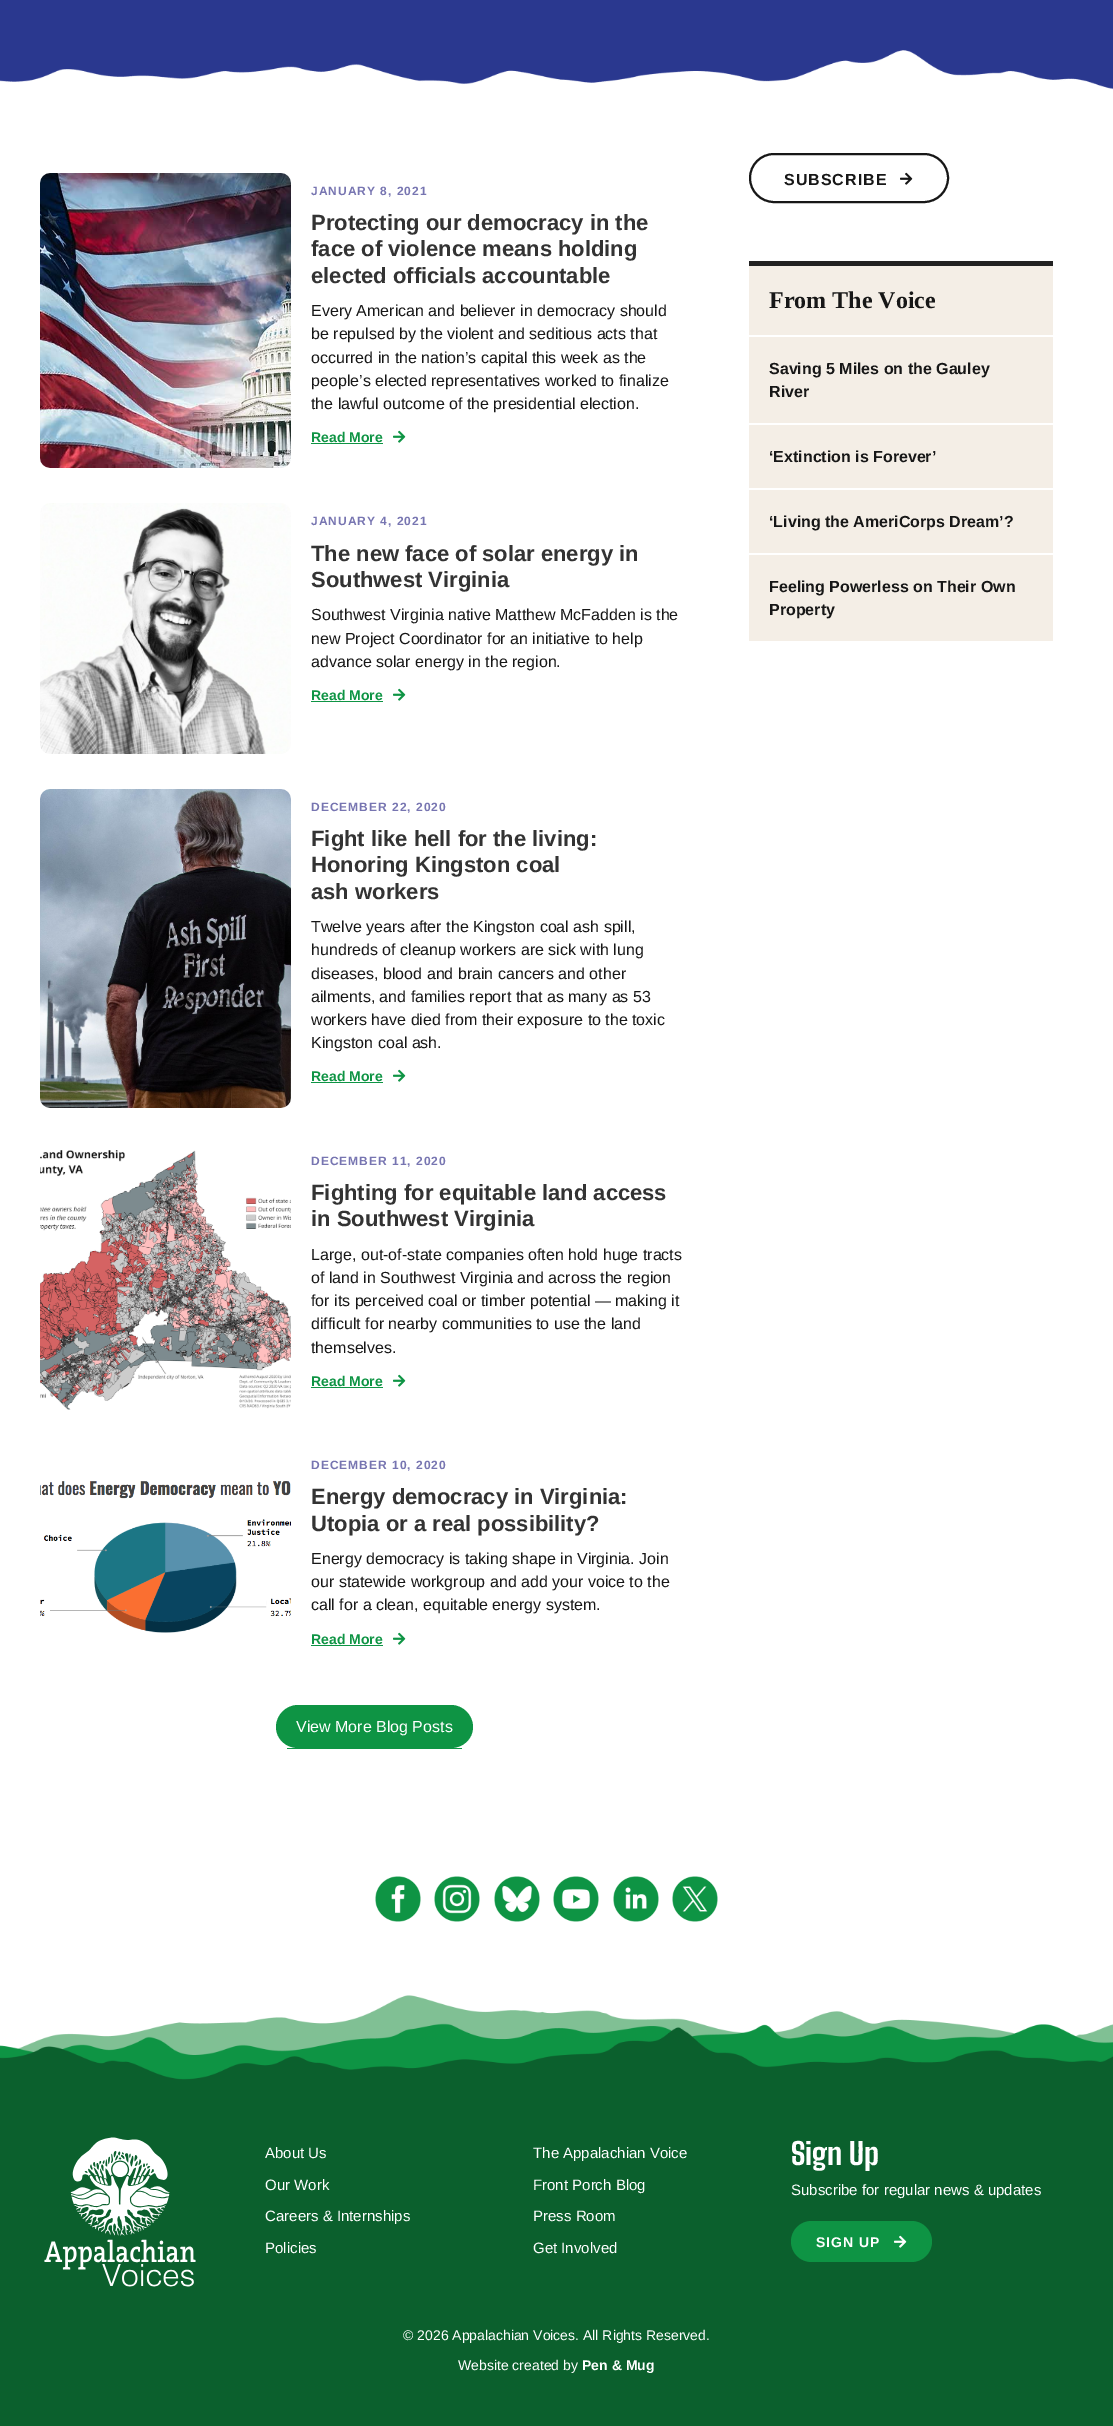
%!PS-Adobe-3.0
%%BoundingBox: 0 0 1113 2426
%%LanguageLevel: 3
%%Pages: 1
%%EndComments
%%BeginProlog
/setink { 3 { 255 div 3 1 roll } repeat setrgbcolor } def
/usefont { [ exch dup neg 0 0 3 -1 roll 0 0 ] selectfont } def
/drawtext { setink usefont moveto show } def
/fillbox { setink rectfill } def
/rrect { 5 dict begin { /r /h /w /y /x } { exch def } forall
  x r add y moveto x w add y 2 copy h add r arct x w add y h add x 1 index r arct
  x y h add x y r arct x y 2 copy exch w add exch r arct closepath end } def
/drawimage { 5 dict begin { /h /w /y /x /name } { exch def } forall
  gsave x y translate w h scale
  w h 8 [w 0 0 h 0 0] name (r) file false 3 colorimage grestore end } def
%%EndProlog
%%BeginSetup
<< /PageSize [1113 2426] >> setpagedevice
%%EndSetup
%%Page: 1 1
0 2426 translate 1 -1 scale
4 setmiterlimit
0 0 1113 2426 255 255 255 fillbox
0 0 1113 90 42 56 143 fillbox
(assets/img1.rgb) 0 50 1113 43 drawimage
(assets/img2.rgb) 40 173 251 295 drawimage
/LiberationSans-Bold 12 usefont
119 117 177 setink
311 195 moveto 1 0 (JANUARY 8, 2021) ashow
(Protecting our democracy in the) 311 230 /LiberationSans-Bold 22 51 51 51 drawtext
(face of violence means holding) 311 256 /LiberationSans-Bold 22 51 51 51 drawtext
(elected officials accountable) 311 283 /LiberationSans-Bold 22 51 51 51 drawtext
(Every American and believer in democracy should) 311 316 /LiberationSans-Regular 16 23 23 23 drawtext
(be repulsed by the violent and seditious acts that) 311 339 /LiberationSans-Regular 16 23 23 23 drawtext
(occurred in the nation’s capital this week as the) 311 363 /LiberationSans-Regular 16 23 23 23 drawtext
(people’s elected representatives worked to finalize) 311 386 /LiberationSans-Regular 16 23 23 23 drawtext
(the lawful outcome of the presidential election.) 311 409 /LiberationSans-Regular 16 23 23 23 drawtext
(Read More) 311 442 /LiberationSans-Bold 14 14 148 68 drawtext
311 443 72 1 14 148 68 fillbox
(assets/img3.rgb) 393 430 13 13 drawimage
(assets/img4.rgb) 40 503 251 251 drawimage
/LiberationSans-Bold 12 usefont
119 117 177 setink
311 525 moveto 1 0 (JANUARY 4, 2021) ashow
(The new face of solar energy in) 311 561 /LiberationSans-Bold 22 51 51 51 drawtext
(Southwest Virginia) 311 587 /LiberationSans-Bold 22 51 51 51 drawtext
(Southwest Virginia native Matthew McFadden is the) 311 620 /LiberationSans-Regular 16 23 23 23 drawtext
(new Project Coordinator for an initiative to help) 311 644 /LiberationSans-Regular 16 23 23 23 drawtext
(advance solar energy in the region.) 311 667 /LiberationSans-Regular 16 23 23 23 drawtext
(Read More) 311 700 /LiberationSans-Bold 14 14 148 68 drawtext
311 701 72 1 14 148 68 fillbox
(assets/img3.rgb) 393 688 13 13 drawimage
(assets/img5.rgb) 40 789 251 319 drawimage
/LiberationSans-Bold 12 usefont
119 117 177 setink
311 811 moveto 1 0 (DECEMBER 22, 2020) ashow
(Fight like hell for the living:) 311 846 /LiberationSans-Bold 22 51 51 51 drawtext
(Honoring Kingston coal) 311 872 /LiberationSans-Bold 22 51 51 51 drawtext
(ash workers) 311 899 /LiberationSans-Bold 22 51 51 51 drawtext
(Twelve years after the Kingston coal ash spill,) 311 932 /LiberationSans-Regular 16 23 23 23 drawtext
(hundreds of cleanup workers are sick with lung) 311 955 /LiberationSans-Regular 16 23 23 23 drawtext
(diseases, blood and brain cancers and other) 311 979 /LiberationSans-Regular 16 23 23 23 drawtext
(ailments, and families report that as many as 53) 311 1002 /LiberationSans-Regular 16 23 23 23 drawtext
(workers have died from their exposure to the toxic) 311 1025 /LiberationSans-Regular 16 23 23 23 drawtext
(Kingston coal ash.) 311 1048 /LiberationSans-Regular 16 23 23 23 drawtext
(Read More) 311 1081 /LiberationSans-Bold 14 14 148 68 drawtext
311 1082 72 1 14 148 68 fillbox
(assets/img3.rgb) 393 1069 13 13 drawimage
(assets/img6.rgb) 40 1150 251 260 drawimage
/LiberationSans-Bold 12 usefont
119 117 177 setink
311 1165 moveto 1 0 (DECEMBER 11, 2020) ashow
(Fighting for equitable land access) 311 1200 /LiberationSans-Bold 22 51 51 51 drawtext
(in Southwest Virginia) 311 1226 /LiberationSans-Bold 22 51 51 51 drawtext
(Large, out-of-state companies often hold huge tracts) 311 1260 /LiberationSans-Regular 16 23 23 23 drawtext
(of land in Southwest Virginia and across the region) 311 1283 /LiberationSans-Regular 16 23 23 23 drawtext
(for its perceived coal or timber potential — making it) 311 1306 /LiberationSans-Regular 16 23 23 23 drawtext
(difficult for nearby communities to use the land) 311 1329 /LiberationSans-Regular 16 23 23 23 drawtext
(themselves.) 311 1353 /LiberationSans-Regular 16 23 23 23 drawtext
(Read More) 311 1386 /LiberationSans-Bold 14 14 148 68 drawtext
311 1387 72 1 14 148 68 fillbox
(assets/img3.rgb) 393 1374 13 13 drawimage
(assets/img7.rgb) 40 1481 251 152 drawimage
/LiberationSans-Bold 12 usefont
119 117 177 setink
311 1469 moveto 1 0 (DECEMBER 10, 2020) ashow
(Energy democracy in Virginia:) 311 1504 /LiberationSans-Bold 22 51 51 51 drawtext
(Utopia or a real possibility?) 311 1531 /LiberationSans-Bold 22 51 51 51 drawtext
(Energy democracy is taking shape in Virginia. Join) 311 1564 /LiberationSans-Regular 16 23 23 23 drawtext
(our statewide workgroup and add your voice to the) 311 1587 /LiberationSans-Regular 16 23 23 23 drawtext
(call for a clean, equitable energy system.) 311 1610 /LiberationSans-Regular 16 23 23 23 drawtext
(Read More) 311 1644 /LiberationSans-Bold 14 14 148 68 drawtext
311 1645 72 1 14 148 68 fillbox
(assets/img3.rgb) 393 1632 13 13 drawimage
298 1705 moveto 451 1705 lineto 463 1705 473 1715 473 1727 curveto 473 1739 463 1748 451 1748 curveto 298 1748 lineto 286 1748 276 1739 276 1727 curveto 276 1715 286 1705 298 1705 curveto closepath fill
287 1748 175 1 14 148 68 fillbox
(View More Blog Posts) 296 1732 /LiberationSans-Regular 16 255 255 255 drawtext
23 23 23 setink
2 setlinewidth
750 154 198 48 24 rrect stroke
/LiberationSans-Bold 16 usefont
784 185 moveto 1 0 (SUBSCRIBE) ashow
(assets/img8.rgb) 900 172 13 13 drawimage
749 266 304 69 244 238 230 fillbox
749 261 304 5 34 34 34 fillbox
(From The Voice) 769 308 /LiberationSerif-Bold 24 23 23 23 drawtext
749 337 304 86 244 238 230 fillbox
(Saving 5 Miles on the Gauley) 769 374 /LiberationSans-Bold 16 23 23 23 drawtext
(River) 769 397 /LiberationSans-Bold 16 23 23 23 drawtext
749 425 304 63 244 238 230 fillbox
(‘Extinction is Forever’) 769 462 /LiberationSans-Bold 16 23 23 23 drawtext
749 490 304 63 244 238 230 fillbox
(‘Living the AmeriCorps Dream’?) 769 527 /LiberationSans-Bold 16 23 23 23 drawtext
749 555 304 86 244 238 230 fillbox
(Feeling Powerless on Their Own) 769 592 /LiberationSans-Bold 16 23 23 23 drawtext
(Property) 769 615 /LiberationSans-Bold 16 23 23 23 drawtext
(assets/img9.rgb) 375 1876 46 46 drawimage
(assets/img10.rgb) 434 1876 46 46 drawimage
(assets/img11.rgb) 494 1876 46 46 drawimage
(assets/img12.rgb) 553 1876 46 46 drawimage
(assets/img13.rgb) 613 1876 46 46 drawimage
(assets/img14.rgb) 672 1876 46 46 drawimage
(assets/img15.rgb) 0 1995 1113 97 drawimage
0 2092 1113 334 11 96 45 fillbox
(assets/img16.rgb) 44 2137 152 150 drawimage
(About Us) 265 2158 /LiberationSans-Regular 15 255 255 255 drawtext
(Our Work) 265 2190 /LiberationSans-Regular 15 255 255 255 drawtext
(Careers & Internships) 265 2221 /LiberationSans-Regular 15 255 255 255 drawtext
(Policies) 265 2253 /LiberationSans-Regular 15 255 255 255 drawtext
(The Appalachian Voice) 533 2158 /LiberationSans-Regular 15 255 255 255 drawtext
(Front Porch Blog) 533 2190 /LiberationSans-Regular 15 255 255 255 drawtext
(Press Room) 533 2221 /LiberationSans-Regular 15 255 255 255 drawtext
(Get Involved) 533 2253 /LiberationSans-Regular 15 255 255 255 drawtext
(Sign Up) 791 2165 /BigShouldersText-Thin 30 255 255 255 drawtext
(Subscribe for regular news & updates) 791 2195 /LiberationSans-Regular 15 255 255 255 drawtext
14 148 68 setink
791 2221 141 41 20.5 rrect fill
/LiberationSans-Bold 14 usefont
255 255 255 setink
816 2247 moveto 1 0 (SIGN UP) ashow
(assets/img17.rgb) 894 2235 13 13 drawimage
(© 2026 Appalachian Voices. All Rights Reserved.) 403 2340 /LiberationSans-Regular 14 255 255 255 drawtext
(Website created by) 458 2370 /LiberationSans-Regular 14 255 255 255 drawtext
(Pen & Mug) 582 2370 /LiberationSans-Bold 14 255 255 255 drawtext
showpage
%%EOF
